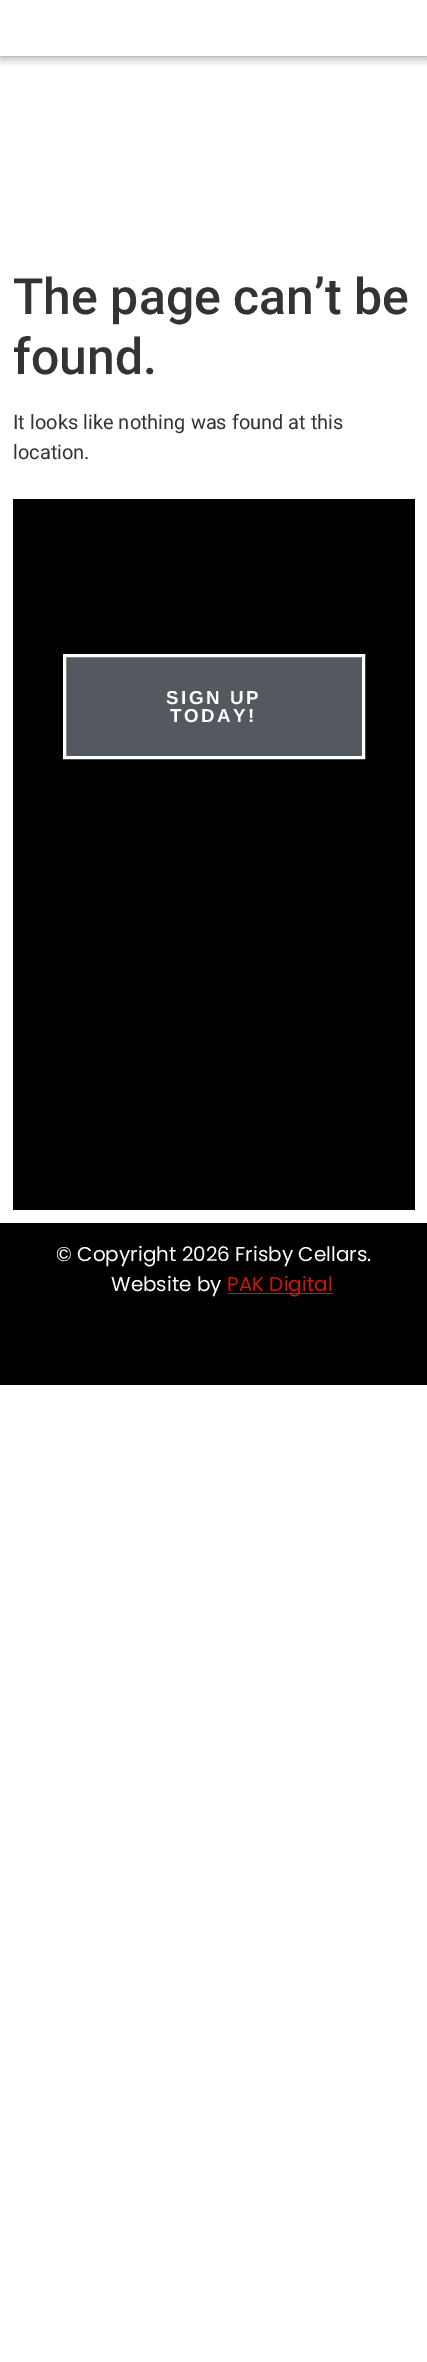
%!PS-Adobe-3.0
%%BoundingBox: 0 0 427 2362
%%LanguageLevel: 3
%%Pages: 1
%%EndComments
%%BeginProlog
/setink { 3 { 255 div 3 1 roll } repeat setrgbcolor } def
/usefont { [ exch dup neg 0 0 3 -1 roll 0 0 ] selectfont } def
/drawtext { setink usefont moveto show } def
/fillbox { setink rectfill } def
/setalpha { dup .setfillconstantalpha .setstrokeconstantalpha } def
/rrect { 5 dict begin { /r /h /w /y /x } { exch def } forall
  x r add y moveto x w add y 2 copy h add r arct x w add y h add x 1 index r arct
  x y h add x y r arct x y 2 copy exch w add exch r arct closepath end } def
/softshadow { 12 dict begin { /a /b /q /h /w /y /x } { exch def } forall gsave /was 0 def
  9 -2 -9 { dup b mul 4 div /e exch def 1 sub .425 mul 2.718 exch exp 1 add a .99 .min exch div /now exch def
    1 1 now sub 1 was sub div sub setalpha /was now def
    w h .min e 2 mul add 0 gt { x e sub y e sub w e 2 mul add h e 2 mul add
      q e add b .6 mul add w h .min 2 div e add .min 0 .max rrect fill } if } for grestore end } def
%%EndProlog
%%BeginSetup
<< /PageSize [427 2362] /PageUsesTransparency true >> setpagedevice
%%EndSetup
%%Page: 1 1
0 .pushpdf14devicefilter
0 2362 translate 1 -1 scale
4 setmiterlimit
0 0 427 2362 255 255 255 fillbox
gsave
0 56 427 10 rectclip
0 0 0 setink
0 0 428 56 0 6 0.5 softshadow
grestore
(The page can’t be) 13 314 /Roboto-Medium 50 51 51 51 drawtext
(found.) 13 374 /Roboto-Medium 50 51 51 51 drawtext
(It looks like nothing was found at this) 13 429 /Roboto-Regular 20 51 51 51 drawtext
(location.) 13 459 /Roboto-Regular 20 51 51 51 drawtext
13 499 402 711 0 0 0 fillbox
84 89 95 setink
64.5 655.5 moveto 363.5 655.5 lineto 363.5 757.5 lineto 64.5 757.5 lineto closepath gsave fill grestore
255 255 255 setink
3 setlinewidth
stroke
/LiberationSans-Bold 18.75 usefont
166 704 moveto 2.5 0 (SIGN UP) ashow
170 722 moveto 2.5 0 (TODAY!) ashow
0 1223 427 162 0 0 0 fillbox
(© Copyright 2026 Frisby Cellars.) 56 1261 /Poppins-Regular 20 255 255 255 drawtext
(Website by) 111 1291 /Poppins-Regular 20 255 255 255 drawtext
228 1293 105 1 255 0 0 fillbox
(PAK Digital) 227 1291 /Poppins-Regular 20 204 26 0 drawtext
.poppdf14devicefilter showpage
%%EOF
